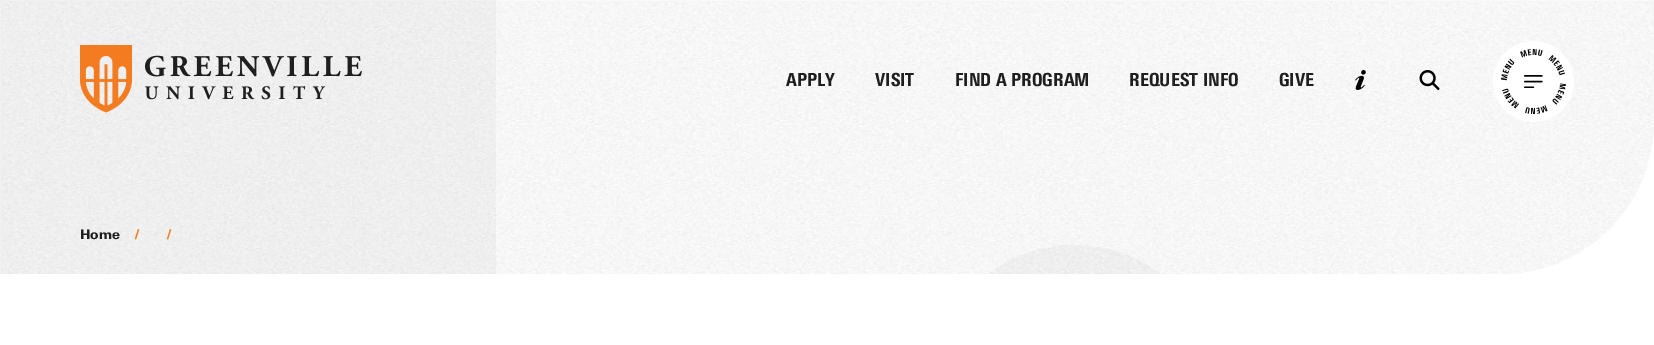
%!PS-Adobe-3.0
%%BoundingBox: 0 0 1654 345
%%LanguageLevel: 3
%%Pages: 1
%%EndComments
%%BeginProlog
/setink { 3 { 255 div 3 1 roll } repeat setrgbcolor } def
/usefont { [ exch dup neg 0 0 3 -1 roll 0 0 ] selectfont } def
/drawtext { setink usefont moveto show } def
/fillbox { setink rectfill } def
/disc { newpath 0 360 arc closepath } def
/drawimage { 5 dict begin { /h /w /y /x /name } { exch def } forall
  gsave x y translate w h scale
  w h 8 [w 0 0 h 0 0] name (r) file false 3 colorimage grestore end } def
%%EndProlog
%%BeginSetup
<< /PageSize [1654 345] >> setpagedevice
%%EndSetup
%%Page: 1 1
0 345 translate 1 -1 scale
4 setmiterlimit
0 0 1654 345 255 255 255 fillbox
246 246 246 setink
0 0 moveto 1654 0 lineto 1654 121 lineto 1654 205.5 1585.5 274 1501 274 curveto 0 274 lineto closepath fill
(assets/img6.rgb) 496 0 1158 274 drawimage
(assets/img7.rgb) 0 0 1654 274 drawimage
(assets/img1.rgb) 80 45 282 68 drawimage
(APPLY) 786 86 /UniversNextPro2-Black 18 31 31 31 drawtext
(VISIT) 875 86 /UniversNextPro2-Black 18 31 31 31 drawtext
(FIND A PROGRAM) 955 86 /UniversNextPro2-Black 18 31 31 31 drawtext
(REQUEST INFO) 1129 86 /UniversNextPro2-Black 18 31 31 31 drawtext
(GIVE) 1279 86 /UniversNextPro2-Black 18 31 31 31 drawtext
(assets/img2.rgb) 1355 70 11 20 drawimage
(assets/img3.rgb) 1419 70 21 20 drawimage
255 255 255 setink
1533.5 81.5 40.5 disc fill
(assets/img4.rgb) 1501 49 65 65 drawimage
(assets/img5.rgb) 1524 75 19 13 drawimage
(Home) 80 239 /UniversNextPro-Black 13 31 31 31 drawtext
(/) 135 239 /UniversNextPro-Black 13 244 123 32 drawtext
(/) 167 239 /UniversNextPro-Black 13 244 123 32 drawtext
showpage
%%EOF
